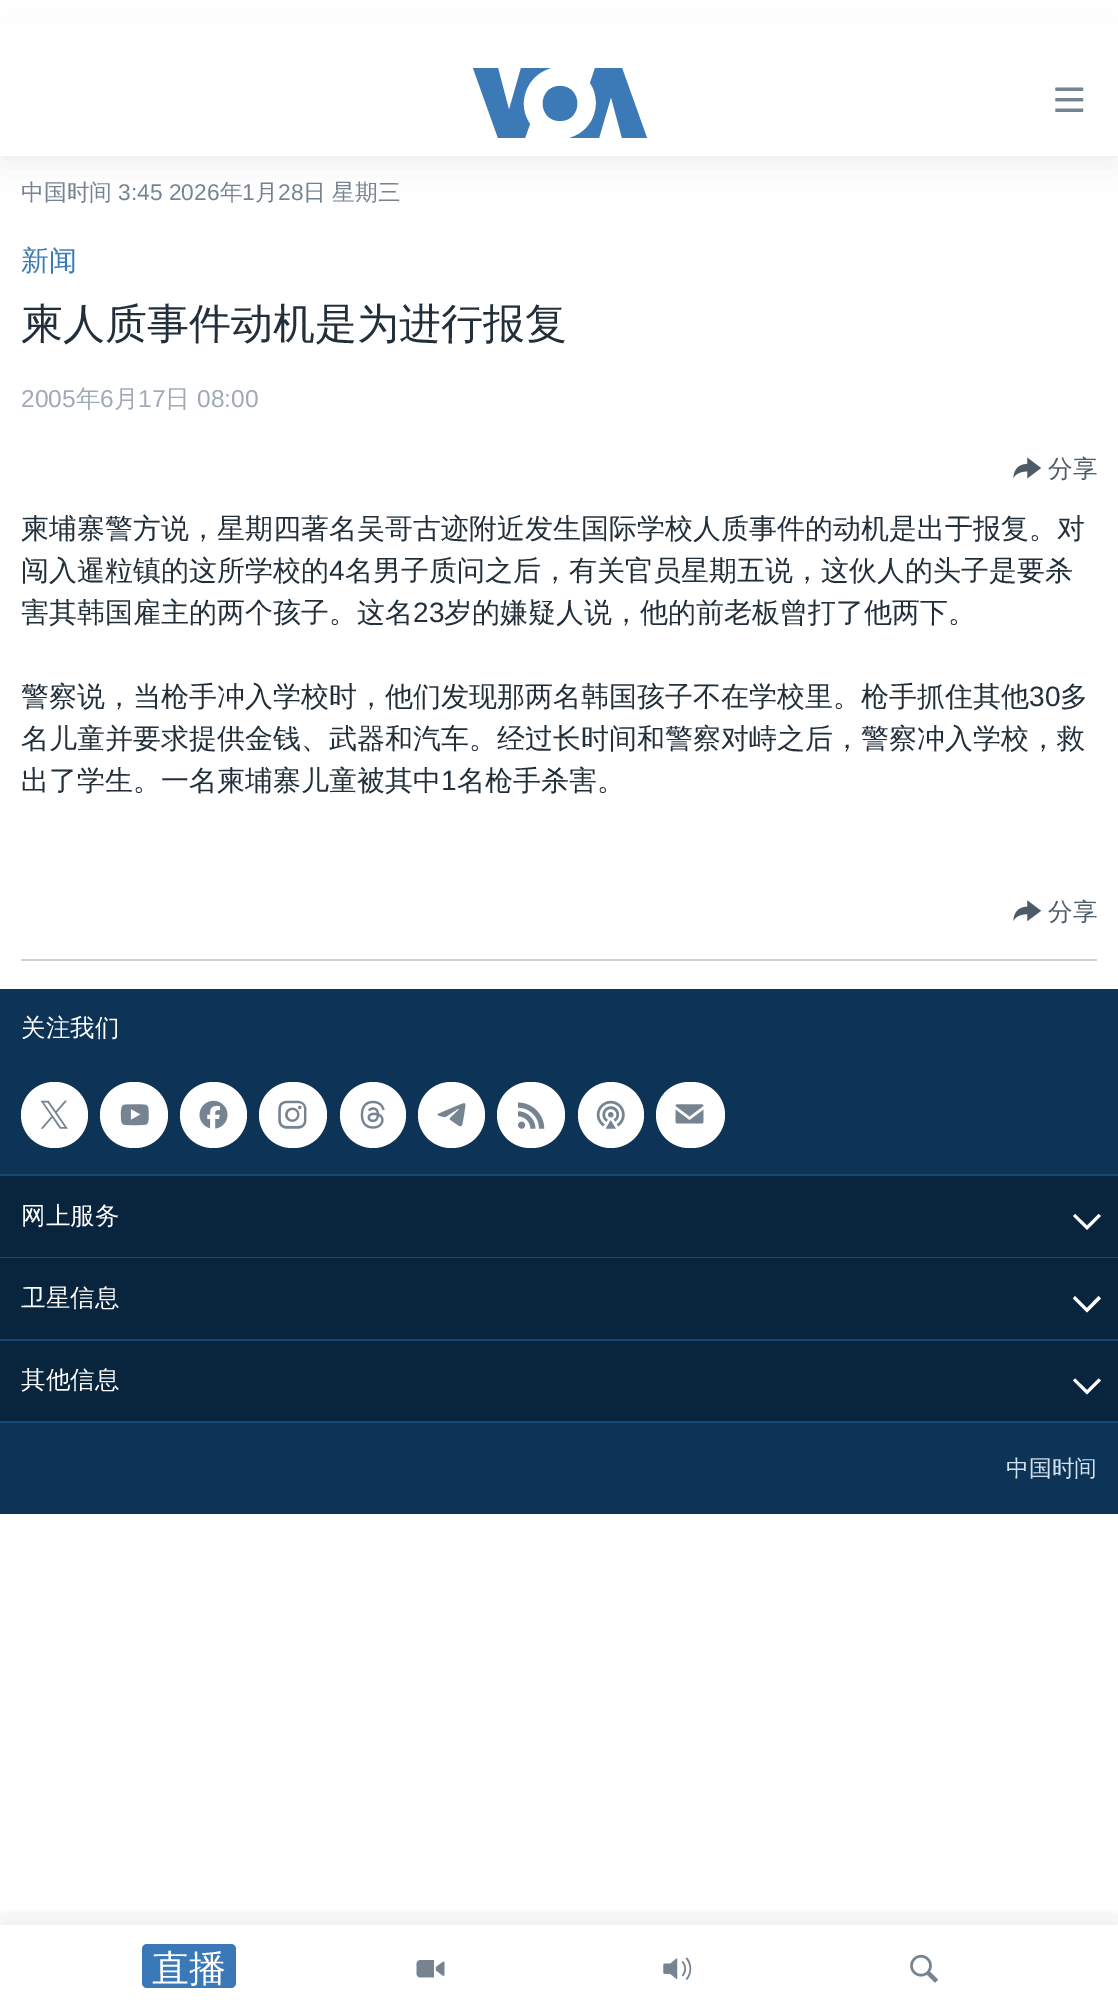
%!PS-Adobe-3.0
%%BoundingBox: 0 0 1118 2011
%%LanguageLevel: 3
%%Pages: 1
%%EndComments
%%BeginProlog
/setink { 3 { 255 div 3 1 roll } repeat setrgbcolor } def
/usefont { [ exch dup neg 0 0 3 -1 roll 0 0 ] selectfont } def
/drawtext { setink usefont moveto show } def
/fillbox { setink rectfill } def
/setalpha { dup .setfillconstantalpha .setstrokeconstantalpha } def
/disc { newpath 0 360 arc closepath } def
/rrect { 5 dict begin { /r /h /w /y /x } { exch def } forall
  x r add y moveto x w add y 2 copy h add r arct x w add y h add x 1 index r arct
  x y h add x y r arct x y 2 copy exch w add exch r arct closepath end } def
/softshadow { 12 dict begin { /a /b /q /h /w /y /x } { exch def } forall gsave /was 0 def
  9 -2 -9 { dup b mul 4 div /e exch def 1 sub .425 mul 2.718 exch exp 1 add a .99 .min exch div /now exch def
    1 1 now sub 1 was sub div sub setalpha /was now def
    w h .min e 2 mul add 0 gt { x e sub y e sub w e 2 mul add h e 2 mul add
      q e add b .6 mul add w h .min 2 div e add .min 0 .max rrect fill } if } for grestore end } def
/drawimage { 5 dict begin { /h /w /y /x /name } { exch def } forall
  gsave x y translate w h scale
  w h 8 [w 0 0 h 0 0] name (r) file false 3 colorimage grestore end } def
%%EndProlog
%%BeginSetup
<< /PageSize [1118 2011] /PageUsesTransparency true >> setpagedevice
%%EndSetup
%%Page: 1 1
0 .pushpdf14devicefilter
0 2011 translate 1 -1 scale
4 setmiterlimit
0 0 1118 2011 255 255 255 fillbox
(中国时间) 21 200 /WenQuanYiZenHei-Medium 22.75 118 132 146 drawtext
(3:45 2026) 118 200 /LiberationSans-Regular 22.75 118 132 146 drawtext
(年) 220 200 /WenQuanYiZenHei-Medium 22.75 118 132 146 drawtext
(1) 242 200 /LiberationSans-Regular 22.75 118 132 146 drawtext
(月) 255 200 /WenQuanYiZenHei-Medium 22.75 118 132 146 drawtext
(28) 278 200 /LiberationSans-Regular 22.75 118 132 146 drawtext
(日) 303 200 /WenQuanYiZenHei-Medium 22.75 118 132 146 drawtext
(星期三) 332 200 /WenQuanYiZenHei-Medium 22.75 118 132 146 drawtext
(新闻) 21 270 /WenQuanYiZenHei-Medium 28 58 121 183 drawtext
(柬人质事件动机是为进行报复) 21 338 /WenQuanYiZenHei-Medium 42 34 47 58 drawtext
(2005) 21 407 /LiberationSans-Regular 24.5 161 170 180 drawtext
(年) 76 407 /WenQuanYiZenHei-Medium 24.5 161 170 180 drawtext
(6) 100 407 /LiberationSans-Regular 24.5 161 170 180 drawtext
(月) 114 407 /WenQuanYiZenHei-Medium 24.5 161 170 180 drawtext
(17) 138 407 /LiberationSans-Regular 24.5 161 170 180 drawtext
(日) 165 407 /WenQuanYiZenHei-Medium 24.5 161 170 180 drawtext
(08:00) 197 407 /LiberationSans-Regular 24.5 161 170 180 drawtext
(assets/img1.rgb) 1013 457 29 22 drawimage
(分享) 1048 477 /WenQuanYiZenHei-Medium 24.5 77 90 103 drawtext
(柬埔寨警方说，星期四著名吴哥古迹附近发生国际学校人质事件的动机是出于报复。对) 21 538 /WenQuanYiZenHei-Medium 28 34 47 58 drawtext
(闯入暹粒镇的这所学校的) 21 580 /WenQuanYiZenHei-Medium 28 34 47 58 drawtext
(4) 329 580 /LiberationSans-Regular 28 34 47 58 drawtext
(名男子质问之后，有关官员星期五说，这伙人的头子是要杀) 345 580 /WenQuanYiZenHei-Medium 28 34 47 58 drawtext
(害其韩国雇主的两个孩子。这名) 21 622 /WenQuanYiZenHei-Medium 28 34 47 58 drawtext
(23) 413 622 /LiberationSans-Regular 28 34 47 58 drawtext
(岁的嫌疑人说，他的前老板曾打了他两下。) 444 622 /WenQuanYiZenHei-Medium 28 34 47 58 drawtext
(警察说，当枪手冲入学校时，他们发现那两名韩国孩子不在学校里。枪手抓住其他) 21 706 /WenQuanYiZenHei-Medium 28 34 47 58 drawtext
(30) 1029 706 /LiberationSans-Regular 28 34 47 58 drawtext
(多) 1060 706 /WenQuanYiZenHei-Medium 28 34 47 58 drawtext
(名儿童并要求提供金钱、武器和汽车。经过长时间和警察对峙之后，警察冲入学校，救) 21 748 /WenQuanYiZenHei-Medium 28 34 47 58 drawtext
(出了学生。一名柬埔寨儿童被其中) 21 790 /WenQuanYiZenHei-Medium 28 34 47 58 drawtext
(1) 441 790 /LiberationSans-Regular 28 34 47 58 drawtext
(名枪手杀害。) 457 790 /WenQuanYiZenHei-Medium 28 34 47 58 drawtext
21 959 1076 2 203 209 214 fillbox
(assets/img2.rgb) 1013 900 29 22 drawimage
(分享) 1048 920 /WenQuanYiZenHei-Medium 24.5 77 90 103 drawtext
0 989 1118 525 13 52 86 fillbox
0 1421 1118 2 19 73 118 fillbox
(关注我们) 21 1036 /WenQuanYiZenHei-Medium 24.5 255 255 255 drawtext
21 1082 67 66 33 rrect fill
(assets/img3.rgb) 40 1100 28 29 drawimage
100 1082 68 66 33 rrect fill
(assets/img4.rgb) 120 1104 29 22 drawimage
180 1082 67 66 33 rrect fill
(assets/img5.rgb) 199 1100 29 29 drawimage
259 1082 68 66 33 rrect fill
(assets/img6.rgb) 278 1100 29 29 drawimage
373 1115 33 disc fill
(assets/img7.rgb) 360 1100 25 29 drawimage
418 1082 67 66 33 rrect fill
(assets/img8.rgb) 437 1103 29 24 drawimage
497 1082 68 66 33 rrect fill
(assets/img9.rgb) 518 1102 27 27 drawimage
611 1115 33 disc fill
(assets/img10.rgb) 596 1100 29 29 drawimage
656 1082 69 66 33 rrect fill
(assets/img11.rgb) 675 1104 29 20 drawimage
0 1174 1118 2 19 73 118 fillbox
0 1176 1118 81 9 36 61 fillbox
(网上服务) 21 1224 /WenQuanYiZenHei-Medium 24.5 255 255 255 drawtext
1073 1216 moveto 1087 1230 lineto 1101 1216 lineto 1098.5 1214 lineto 1087 1225.5 lineto 1075 1214 lineto closepath fill
0 1257 1118 1 19 73 118 fillbox
0 1258 1118 81 9 36 61 fillbox
(卫星信息) 21 1306 /WenQuanYiZenHei-Medium 24.5 255 255 255 drawtext
1073 1298.5 moveto 1087 1312.5 lineto 1101 1298.5 lineto 1098.5 1296 lineto 1087 1308 lineto 1075 1296 lineto closepath fill
0 1339 1118 2 19 73 118 fillbox
0 1341 1118 80 9 36 61 fillbox
(其他信息) 21 1388 /WenQuanYiZenHei-Medium 24.5 255 255 255 drawtext
1073 1380.5 moveto 1087 1394.5 lineto 1101 1380.5 lineto 1098.5 1378.5 lineto 1087 1390 lineto 1075 1378.5 lineto closepath fill
(中国时间) 1006 1476 /WenQuanYiZenHei-Medium 22.75 209 225 238 drawtext
0 0 0 setink
0 46 1118 110 0 17.5 0.1 softshadow
0 24 1118 132 255 255 255 fillbox
59 121 183 setink
530 124 moveto 525 138 lineto 498 138 lineto 473 68 lineto 498 68 lineto 509 110 lineto 521 68 lineto 551 68 lineto 526 75 516 104 530 124 curveto closepath 560 86 moveto 537 86 537 121 560 121 curveto 583 121 583 86 560 86 curveto closepath 596 103 moveto 596 120 585 134 569 138 curveto 599 138 lineto 611 97 lineto 622 138 lineto 647 138 lineto 622 68 lineto 595 68 lineto 590 83 lineto 594 88 596 96 596 103 curveto closepath fill
(assets/img12.rgb) 1055 87 29 25 drawimage
gsave
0 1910 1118 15 rectclip
0 0 0 setink
0 1925 1118 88 0 17.5 0.1 softshadow
grestore
58 121 183 setink
142 1944 94 44 5 rrect fill
(直播) 152 1981 /WenQuanYiZenHei-Medium 37 255 255 255 drawtext
(assets/img13.rgb) 416 1960 29 18 drawimage
(assets/img14.rgb) 663 1957 29 23 drawimage
(assets/img15.rgb) 910 1954 28 29 drawimage
.poppdf14devicefilter showpage
%%EOF
